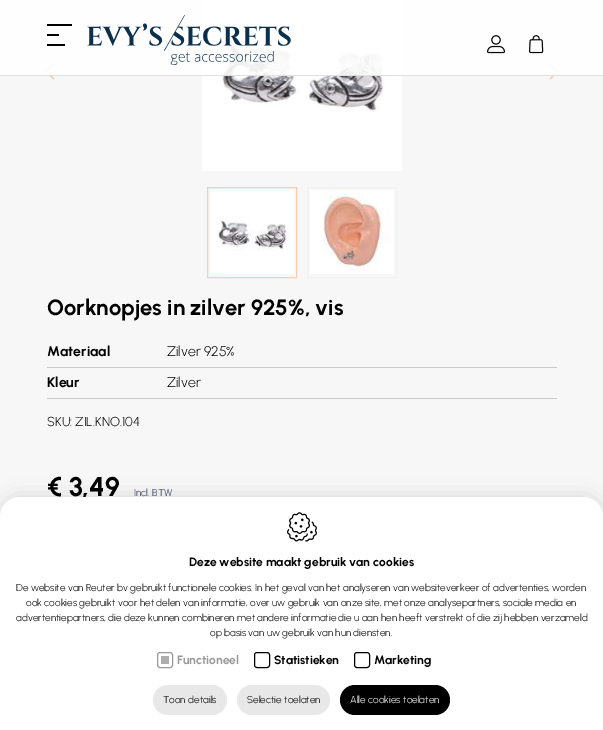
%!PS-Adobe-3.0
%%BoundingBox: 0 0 603 730
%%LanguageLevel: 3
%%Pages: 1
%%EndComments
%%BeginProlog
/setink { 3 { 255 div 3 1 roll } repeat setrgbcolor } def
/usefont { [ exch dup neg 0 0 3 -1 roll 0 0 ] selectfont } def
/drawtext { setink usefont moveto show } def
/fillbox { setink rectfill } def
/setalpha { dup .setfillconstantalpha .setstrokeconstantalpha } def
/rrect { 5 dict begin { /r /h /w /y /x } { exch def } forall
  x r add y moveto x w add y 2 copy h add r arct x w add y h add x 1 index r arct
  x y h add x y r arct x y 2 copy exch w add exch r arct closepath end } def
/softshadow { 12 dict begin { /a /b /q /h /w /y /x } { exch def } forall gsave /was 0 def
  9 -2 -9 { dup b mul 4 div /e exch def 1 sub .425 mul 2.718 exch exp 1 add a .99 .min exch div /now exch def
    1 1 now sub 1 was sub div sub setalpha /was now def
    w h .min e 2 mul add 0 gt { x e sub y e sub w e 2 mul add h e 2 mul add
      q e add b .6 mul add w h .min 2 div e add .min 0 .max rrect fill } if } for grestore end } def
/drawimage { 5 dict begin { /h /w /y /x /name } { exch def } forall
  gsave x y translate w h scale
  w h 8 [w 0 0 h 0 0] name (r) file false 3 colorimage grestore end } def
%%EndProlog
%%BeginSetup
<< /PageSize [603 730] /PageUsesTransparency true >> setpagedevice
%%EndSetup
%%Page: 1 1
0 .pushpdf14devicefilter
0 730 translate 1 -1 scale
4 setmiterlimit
0 0 603 730 247 247 247 fillbox
(assets/img4.rgb) 45 63 10 17 drawimage
(assets/img5.rgb) 202 0 200 171 drawimage
(assets/img6.rgb) 549 63 10 17 drawimage
0.9 setalpha
0 0 603 75 255 255 255 fillbox
1 setalpha
0 75 603 1 224 224 224 fillbox
47 24 25 2 0 0 0 fillbox
47 34 12 2 0 0 0 fillbox
47 44 18 2 0 0 0 fillbox
(assets/img1.rgb) 87 15 204 50 drawimage
(assets/img2.rgb) 487 35 18 19 drawimage
(assets/img3.rgb) 529 35 15 19 drawimage
243 207 179 setink
207.5 187.5 89 90 rectstroke
(assets/img7.rgb) 210 190 84 84 drawimage
241 241 241 setink
307.5 187.5 89 90 rectstroke
(assets/img8.rgb) 310 190 84 84 drawimage
(Oorknopjes in zilver 925%, vis) 47 315 /Urbanist-Bold 22 0 0 0 drawtext
47 367 510 1 201 201 201 fillbox
(Materiaal) 47 356 /Urbanist-Bold 14 0 0 0 drawtext
(Zilver 925%) 167 356 /Urbanist-Light 14 0 0 0 drawtext
47 398 510 1 201 201 201 fillbox
(Kleur) 47 387 /Urbanist-Bold 14 0 0 0 drawtext
(Zilver) 167 387 /Urbanist-Light 14 0 0 0 drawtext
(SKU: ZIL.KNO.104) 47 426 /Urbanist-Light 13 0 0 0 drawtext
(€ 3,49) 47 496 /Urbanist-Bold 27 0 0 0 drawtext
(Incl. BTW) 134 496 /Urbanist-Light 10 53 63 88 drawtext
0 0 0 setink
1 498 601 231 19 10 0.15 softshadow
255 255 255 setink
20 497 moveto 583 497 lineto 594 497 603 506 603 517 curveto 603 730 lineto 0 730 lineto 0 517 lineto 0 506 9 497 20 497 curveto closepath fill
(assets/img9.rgb) 287 512 30 30 drawimage
(Deze website maakt gebruik van cookies) 189 566 /Urbanist-Bold 12 0 0 0 drawtext
(De website van Reuter bv gebruikt functionele cookies. In het geval van het analyseren van websiteverkeer of advertenties, worden) 16 591 /Urbanist-Light 10 0 0 0 drawtext
(ook cookies gebruikt voor het delen van informatie, over uw gebruik van onze site, met onze analysepartners, sociale media en) 26 606 /Urbanist-Light 10 0 0 0 drawtext
(advertentiepartners, die deze kunnen combineren met andere informatie die u aan hen heeft verstrekt of die zij hebben verzameld) 16 621 /Urbanist-Light 10 0 0 0 drawtext
(op basis van uw gebruik van hun diensten.) 210 636 /Urbanist-Light 10 0 0 0 drawtext
153 153 153 setink
157.5 652.5 15 15 2.5 rrect stroke
(Functioneel) 177 664 /Urbanist-Bold 12 153 153 153 drawtext
161 656 8 8 173 173 173 fillbox
0 0 0 setink
254.5 652.5 15 15 2.5 rrect stroke
(Statistieken) 274 664 /Urbanist-Bold 12 0 0 0 drawtext
354.5 652.5 15 15 2.5 rrect stroke
(Marketing) 374 664 /Urbanist-Bold 12 0 0 0 drawtext
232 232 232 setink
153 685 74 30 15 rrect fill
(Toon details) 163 703 /Urbanist-Light 10 0 0 0 drawtext
232 232 232 setink
237 685 93 30 15 rrect fill
(Selectie toelaten) 247 703 /Urbanist-Light 10 0 0 0 drawtext
340 685 110 30 15 rrect fill
(Alle cookies toelaten) 350 703 /Urbanist-Light 10 255 255 255 drawtext
.poppdf14devicefilter showpage
%%EOF
